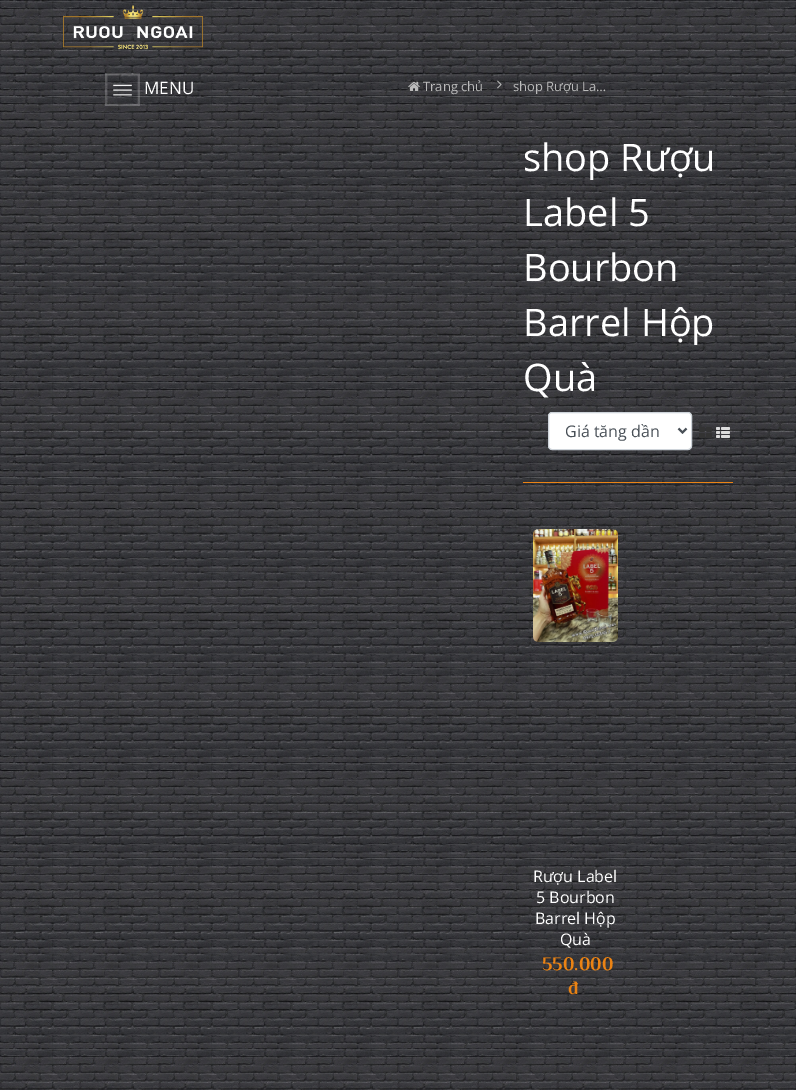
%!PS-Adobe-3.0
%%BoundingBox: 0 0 796 1090
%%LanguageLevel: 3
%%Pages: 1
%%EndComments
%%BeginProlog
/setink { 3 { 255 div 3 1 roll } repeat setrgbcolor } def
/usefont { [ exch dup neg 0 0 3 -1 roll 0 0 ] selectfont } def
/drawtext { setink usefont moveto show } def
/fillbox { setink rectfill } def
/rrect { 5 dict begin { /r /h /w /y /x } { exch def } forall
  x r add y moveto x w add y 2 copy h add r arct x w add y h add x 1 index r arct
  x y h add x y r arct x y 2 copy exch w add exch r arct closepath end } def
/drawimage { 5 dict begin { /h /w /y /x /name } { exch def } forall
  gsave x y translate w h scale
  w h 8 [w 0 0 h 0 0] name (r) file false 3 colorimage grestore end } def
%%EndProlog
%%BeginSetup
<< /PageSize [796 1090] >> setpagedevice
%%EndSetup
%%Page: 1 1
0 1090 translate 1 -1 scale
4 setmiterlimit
0 0 796 1090 255 255 255 fillbox
(assets/img1.rgb) 0 0 796 1090 drawimage
(assets/img2.rgb) 63 5 140 44 drawimage
(assets/img3.rgb) 105 73 35 33 drawimage
(MENU) 144 94 /OpenSans-Regular 17 255 255 255 drawtext
(assets/img4.rgb) 408 81 12 10 drawimage
(Trang chủ) 423 91 /OpenSans-Regular 13 187 187 187 drawtext
(assets/img5.rgb) 497 80 5 9 drawimage
(shop Rượu La…) 513 91 /OpenSans-Regular 13 187 187 187 drawtext
(shop Rượu) 523 171 /OpenSans-Regular 38 255 255 255 drawtext
(Label 5) 523 226 /OpenSans-Regular 38 255 255 255 drawtext
(Bourbon) 523 281 /OpenSans-Regular 38 255 255 255 drawtext
(Barrel Hộp) 523 336 /OpenSans-Regular 38 255 255 255 drawtext
(Quà) 523 391 /OpenSans-Regular 38 255 255 255 drawtext
548.5 412.5 143 37 3.5 rrect gsave fill grestore
206 212 218 setink
stroke
73 80 87 setink
2 setlinewidth
678.5 428.5 moveto 682.5 432.5 lineto 686.5 428.5 lineto stroke
(Giá tăng dần) 565 437 /OpenSans-Regular 16 73 80 87 drawtext
(assets/img6.rgb) 699 427 13 11 drawimage
(assets/img7.rgb) 716 427 14 11 drawimage
523 482 210 1 235 131 20 fillbox
(assets/img8.rgb) 533 529 85 113 drawimage
(Rượu Label) 533 882 /OpenSans-Regular 16 255 255 255 drawtext
(5 Bourbon) 536 903 /OpenSans-Regular 16 255 255 255 drawtext
(Barrel Hộp) 535 924 /OpenSans-Regular 16 255 255 255 drawtext
(Quà) 560 945 /OpenSans-Regular 16 255 255 255 drawtext
(550.000) 542 970 /Philosopher-Bold 19 235 131 20 drawtext
(đ) 568 994 /Philosopher-Bold 19 235 131 20 drawtext
showpage
%%EOF
